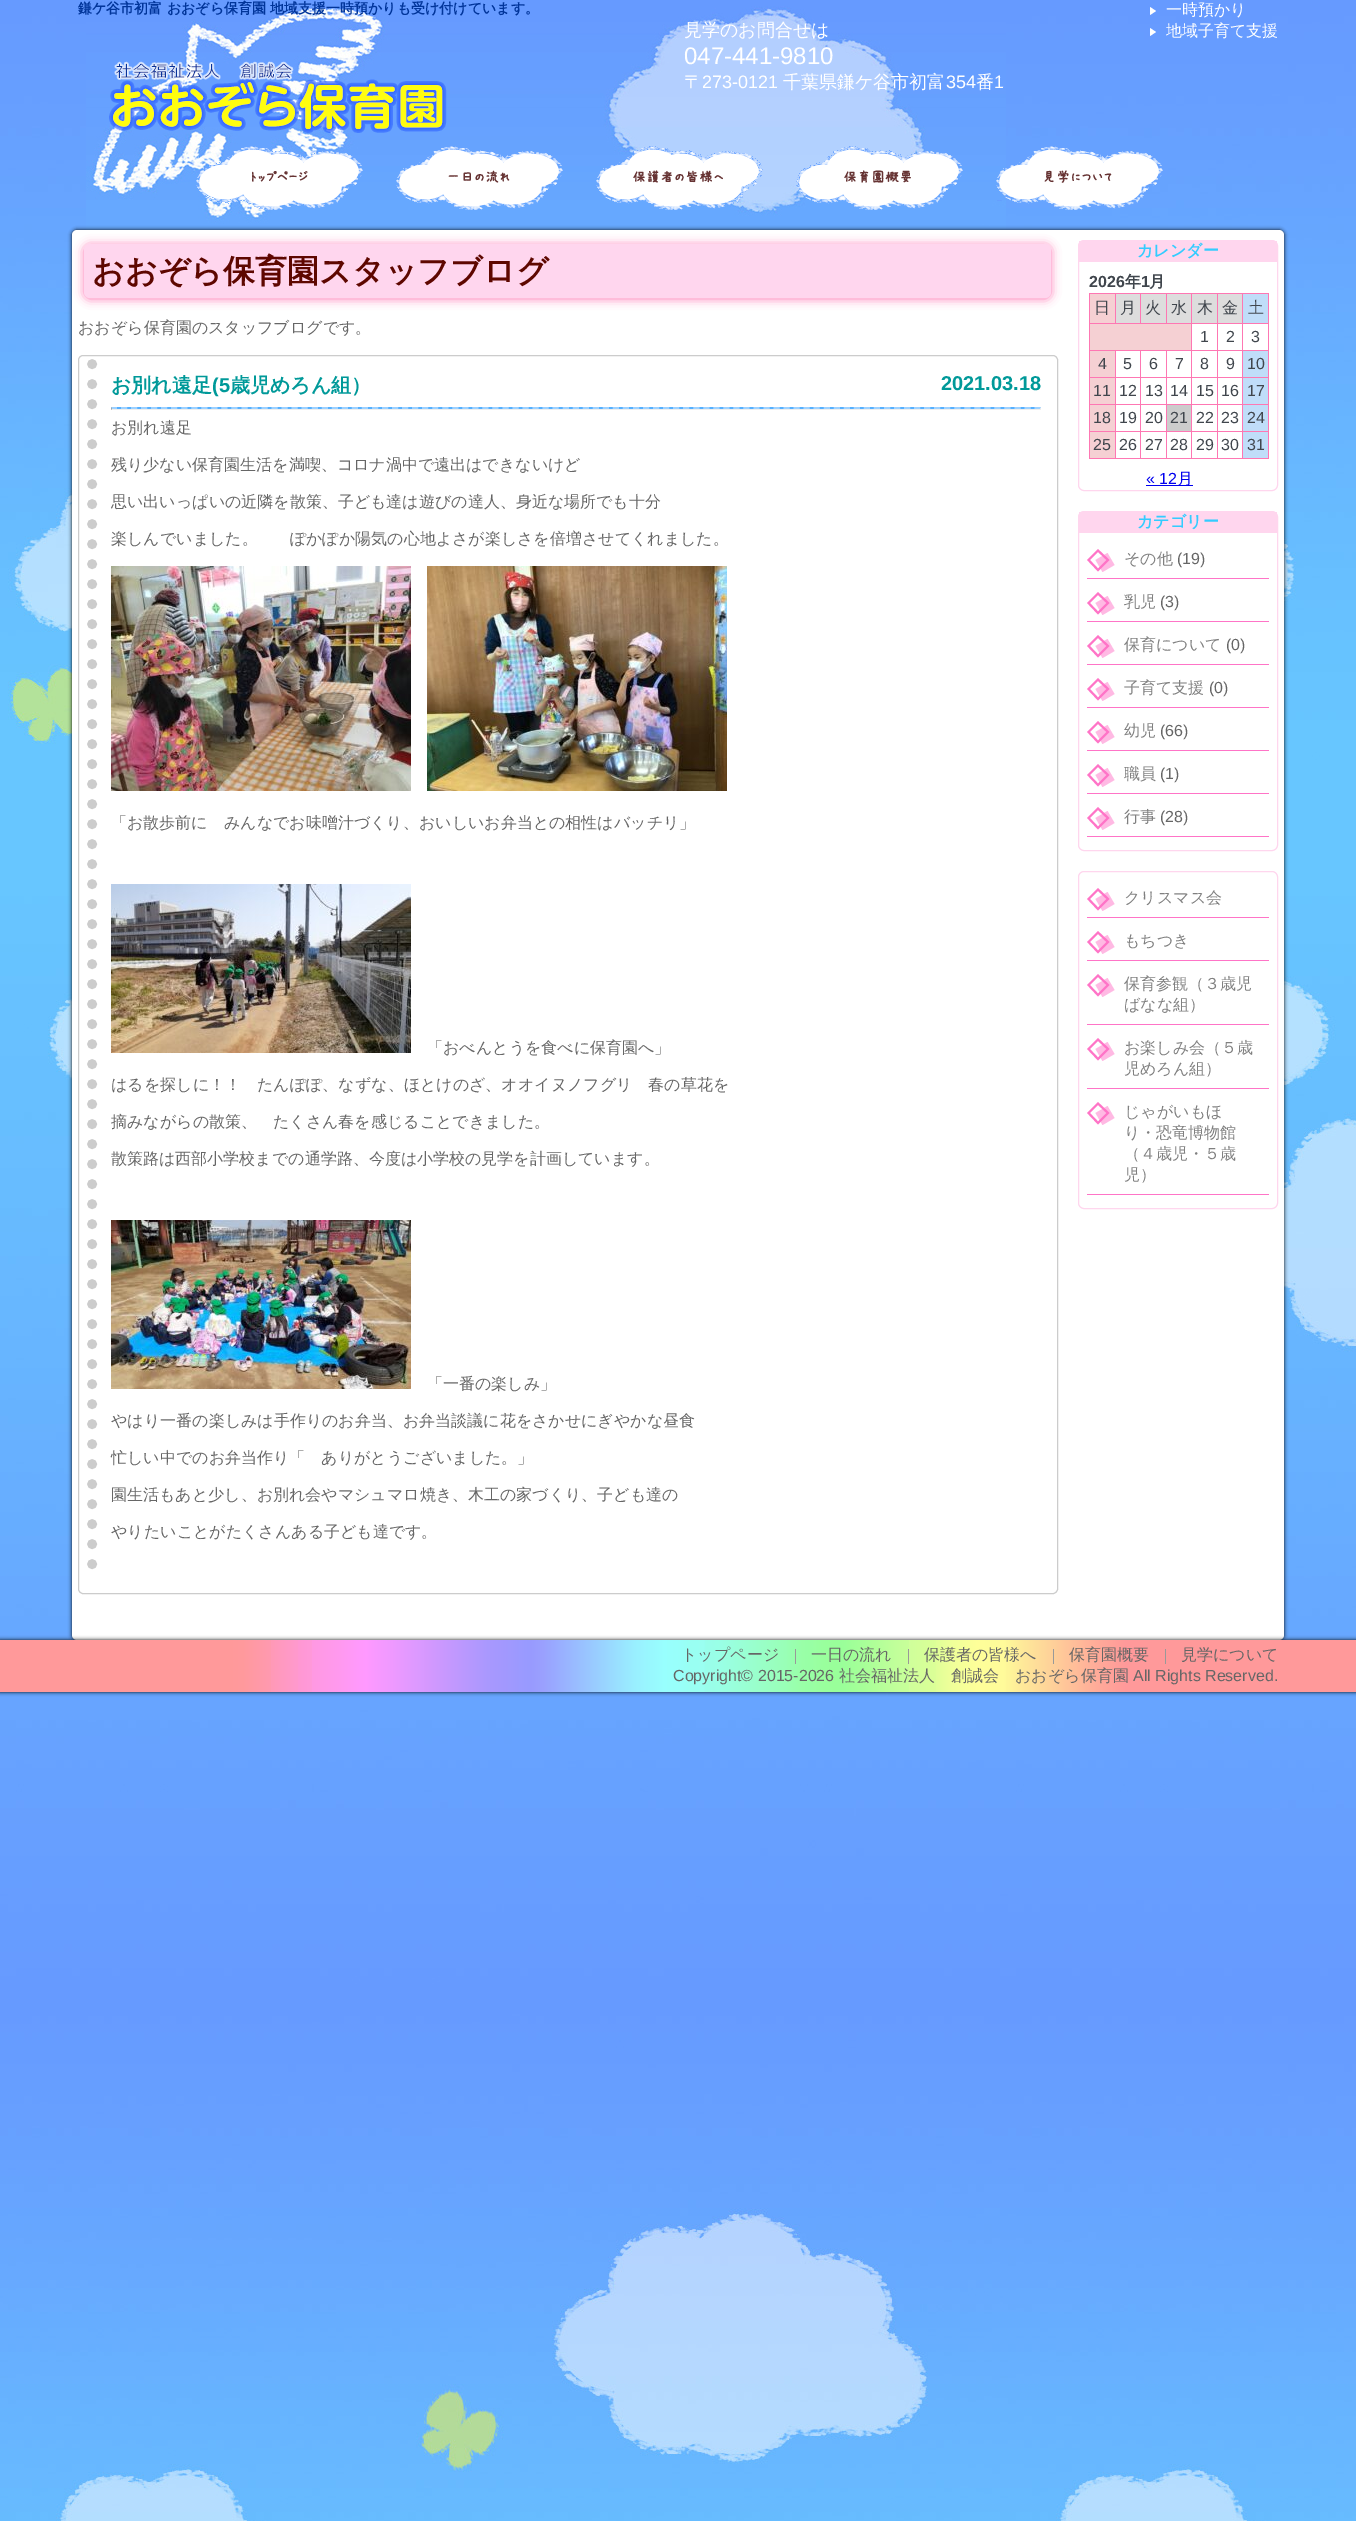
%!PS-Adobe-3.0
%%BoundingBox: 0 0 1356 2521
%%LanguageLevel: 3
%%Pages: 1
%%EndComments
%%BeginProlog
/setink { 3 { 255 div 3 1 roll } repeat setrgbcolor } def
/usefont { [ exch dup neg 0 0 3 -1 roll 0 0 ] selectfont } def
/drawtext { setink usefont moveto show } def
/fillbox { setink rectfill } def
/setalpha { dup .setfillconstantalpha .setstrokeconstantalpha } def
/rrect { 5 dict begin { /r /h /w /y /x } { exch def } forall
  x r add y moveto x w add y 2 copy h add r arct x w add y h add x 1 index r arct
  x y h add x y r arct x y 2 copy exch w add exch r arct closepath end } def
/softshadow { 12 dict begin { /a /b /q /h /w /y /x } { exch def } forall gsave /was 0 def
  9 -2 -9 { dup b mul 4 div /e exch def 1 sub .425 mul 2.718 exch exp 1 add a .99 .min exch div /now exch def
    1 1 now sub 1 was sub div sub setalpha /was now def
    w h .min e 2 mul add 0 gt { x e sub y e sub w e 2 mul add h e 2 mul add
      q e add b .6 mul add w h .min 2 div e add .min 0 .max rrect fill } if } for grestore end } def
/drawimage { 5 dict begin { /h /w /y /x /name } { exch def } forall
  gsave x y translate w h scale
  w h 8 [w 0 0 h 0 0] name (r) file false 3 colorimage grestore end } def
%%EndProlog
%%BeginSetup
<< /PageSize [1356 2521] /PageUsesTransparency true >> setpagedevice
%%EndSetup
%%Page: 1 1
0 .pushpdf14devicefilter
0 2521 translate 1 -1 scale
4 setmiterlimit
0 0 1356 2521 255 255 255 fillbox
(assets/img1.rgb) 0 0 1356 2521 drawimage
(assets/img2.rgb) 86 6 920 224 drawimage
(鎌ケ谷市初富 おおぞら保育園 地域支援一時預かりも受け付けています。) 78 13 /WenQuanYiZenHei-Bold 14 1 53 154 drawtext
(assets/img3.rgb) 109 61 338 72 drawimage
(見学のお問合せは) 684 36 /WenQuanYiZenHei-Medium 18 255 255 255 drawtext
(047-441-9810) 684 64 /LiberationSans-Regular 24 255 255 255 drawtext
(〒) 684 88 /WenQuanYiZenHei-Medium 18 255 255 255 drawtext
(273-0121) 702 88 /LiberationSans-Regular 18 255 255 255 drawtext
(千葉県鎌ケ谷市初富) 783 88 /WenQuanYiZenHei-Medium 18 255 255 255 drawtext
(354) 946 88 /LiberationSans-Regular 18 255 255 255 drawtext
(番) 976 88 /WenQuanYiZenHei-Medium 18 255 255 255 drawtext
(1) 994 88 /LiberationSans-Regular 18 255 255 255 drawtext
1150 15 moveto 1150 7 lineto 1156 11 lineto closepath fill
(一時預かり) 1166 15 /WenQuanYiZenHei-Medium 16 255 255 255 drawtext
1150 36 moveto 1150 28 lineto 1156 32 lineto closepath fill
(地域子育て支援) 1166 36 /WenQuanYiZenHei-Medium 16 255 255 255 drawtext
(assets/img4.rgb) 196 146 167 64 drawimage
(トップページ) 248 182 /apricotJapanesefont-Bold 14 102 51 51 drawtext
(assets/img5.rgb) 396 146 167 64 drawimage
(一日の流れ) 446 182 /apricotJapanesefont-Bold 14 102 51 51 drawtext
(assets/img6.rgb) 596 146 167 64 drawimage
(保護者の皆様へ) 632 182 /apricotJapanesefont-Bold 14 102 51 51 drawtext
(assets/img7.rgb) 796 146 167 64 drawimage
(保育園概要) 843 182 /apricotJapanesefont-Bold 14 102 51 51 drawtext
(assets/img8.rgb) 996 146 167 64 drawimage
(見学について) 1042 182 /apricotJapanesefont-Bold 14 102 51 51 drawtext
0 0 0 setink
72 230 1212 1410 5 2 1 softshadow
255 255 255 setink
72 230 1212 1410 5 rrect fill
254 119 179 setink
84 245 967 54 6 5 1 softshadow
255 214 238 setink
84 244 967 54 6 rrect fill
(おおぞら保育園スタッフブログ) 92 282 /WenQuanYiZenHei-Bold 32 94 7 0 drawtext
(おおぞら保育園のスタッフブログです。) 78 333 /WenQuanYiZenHei-Medium 16 102 102 102 drawtext
204 204 204 setink
78.5 355.5 979 1238 4.5 rrect stroke
10 setlinewidth
1 setlinecap
[0 20] 0 setdash
92 364 moveto 92 1577 lineto stroke
(お別れ遠足) 111 392 /WenQuanYiZenHei-Bold 20 0 153 153 drawtext
(\(5) 212 392 /LiberationSans-Bold 20 0 153 153 drawtext
(歳児めろん組）) 230 392 /WenQuanYiZenHei-Bold 20 0 153 153 drawtext
(2021.03.18) 941 390 /LiberationSans-Bold 20 0 153 153 drawtext
111 407 930 2 86 176 255 fillbox
157 209 255 setink
2 setlinewidth
0 setlinecap
[6 4.04] 0 setdash
111 408 moveto 1041 408 lineto stroke
238 238 238 setink
1041 407 moveto 1041 410 lineto 1040 409 lineto closepath fill
111 409 930 1 238 238 238 fillbox
159 159 159 setink
111 410 moveto 111 407 lineto 112 409 lineto closepath fill
(お別れ遠足) 111 433 /WenQuanYiZenHei-Medium 16 102 102 102 drawtext
(残り少ない保育園生活を満喫、コロナ渦中で遠出はできないけど) 111 470 /WenQuanYiZenHei-Medium 16 102 102 102 drawtext
(思い出いっぱいの近隣を散策、子ども達は遊びの達人、身近な場所でも十分) 111 507 /WenQuanYiZenHei-Medium 16 102 102 102 drawtext
(楽しんでいました。　　ぽかぽか陽気の心地よさが楽しさを倍増させてくれました。) 111 544 /WenQuanYiZenHei-Medium 16 102 102 102 drawtext
(assets/img9.rgb) 111 566 300 225 drawimage
(assets/img10.rgb) 427 566 300 225 drawimage
(「お散歩前に　みんなでお味噌汁づくり、おいしいお弁当との相性はバッチリ」) 111 828 /WenQuanYiZenHei-Medium 16 102 102 102 drawtext
(assets/img11.rgb) 111 884 300 169 drawimage
(「おべんとうを食べに保育園へ」) 427 1053 /WenQuanYiZenHei-Medium 16 102 102 102 drawtext
(はるを探しに！！　たんぽぽ、なずな、ほとけのざ、オオイヌノフグリ　春の草花を) 111 1090 /WenQuanYiZenHei-Medium 16 102 102 102 drawtext
(摘みながらの散策、　たくさん春を感じることできました。) 111 1127 /WenQuanYiZenHei-Medium 16 102 102 102 drawtext
(散策路は西部小学校までの通学路、今度は小学校の見学を計画しています。) 111 1164 /WenQuanYiZenHei-Medium 16 102 102 102 drawtext
(assets/img12.rgb) 111 1220 300 169 drawimage
(「一番の楽しみ」) 427 1389 /WenQuanYiZenHei-Medium 16 102 102 102 drawtext
(やはり一番の楽しみは手作りのお弁当、お弁当談議に花をさかせにぎやかな昼食) 111 1426 /WenQuanYiZenHei-Medium 16 102 102 102 drawtext
(忙しい中でのお弁当作り「　ありがとうございました。」) 111 1463 /WenQuanYiZenHei-Medium 16 102 102 102 drawtext
(園生活もあと少し、お別れ会やマシュマロ焼き、木工の家づくり、子ども達の) 111 1500 /WenQuanYiZenHei-Medium 16 102 102 102 drawtext
(やりたいことがたくさんある子ども達です。) 111 1537 /WenQuanYiZenHei-Medium 16 102 102 102 drawtext
255 214 238 setink
1 setlinewidth
[] 0 setdash
1078.5 240.5 199 250 5.5 rrect stroke
1079 241 198 21 255 214 238 fillbox
(カレンダー) 1137 256 /WenQuanYiZenHei-Bold 16 51 204 255 drawtext
(2026) 1089 287 /LiberationSans-Bold 16 64 70 77 drawtext
(年) 1125 287 /WenQuanYiZenHei-Bold 16 64 70 77 drawtext
(1) 1141 287 /LiberationSans-Bold 16 64 70 77 drawtext
(月) 1149 287 /WenQuanYiZenHei-Bold 16 64 70 77 drawtext
1090 294 25 29 245 208 211 fillbox
1242 293 27 1 254 119 179 fillbox
1242 323 27 1 254 119 179 fillbox
1242 350 27 1 254 119 179 fillbox
1242 377 27 1 254 119 179 fillbox
1242 404 27 1 254 119 179 fillbox
1242 431 27 1 254 119 179 fillbox
1268 431 1 28 254 119 179 fillbox
1242 458 27 1 254 119 179 fillbox
1242 431 1 28 254 119 179 fillbox
1217 431 26 1 254 119 179 fillbox
1242 404 1 28 254 119 179 fillbox
1217 404 26 1 254 119 179 fillbox
1242 377 1 28 254 119 179 fillbox
1217 377 26 1 254 119 179 fillbox
1242 350 1 28 254 119 179 fillbox
1217 350 26 1 254 119 179 fillbox
1242 323 1 28 254 119 179 fillbox
1217 323 26 1 254 119 179 fillbox
1242 293 1 31 254 119 179 fillbox
1217 293 26 1 254 119 179 fillbox
1217 458 26 1 254 119 179 fillbox
1217 431 1 28 254 119 179 fillbox
1191 431 27 1 254 119 179 fillbox
1217 404 1 28 254 119 179 fillbox
1191 404 27 1 254 119 179 fillbox
1217 377 1 28 254 119 179 fillbox
1191 377 27 1 254 119 179 fillbox
1217 350 1 28 254 119 179 fillbox
1191 350 27 1 254 119 179 fillbox
1217 323 1 28 254 119 179 fillbox
1191 323 27 1 254 119 179 fillbox
1217 293 1 31 254 119 179 fillbox
1191 293 27 1 254 119 179 fillbox
1191 458 27 1 254 119 179 fillbox
1191 431 1 28 254 119 179 fillbox
1166 431 26 1 254 119 179 fillbox
1191 404 1 28 254 119 179 fillbox
1166 404 26 1 254 119 179 fillbox
1191 377 1 28 254 119 179 fillbox
1166 377 26 1 254 119 179 fillbox
1191 350 1 28 254 119 179 fillbox
1166 350 26 1 254 119 179 fillbox
1191 323 1 28 254 119 179 fillbox
1089 323 103 1 254 119 179 fillbox
1191 293 1 31 254 119 179 fillbox
1166 293 26 1 254 119 179 fillbox
1166 293 1 31 254 119 179 fillbox
1140 293 27 1 254 119 179 fillbox
1140 293 1 31 254 119 179 fillbox
1115 293 26 1 254 119 179 fillbox
1115 293 1 31 254 119 179 fillbox
1089 293 27 1 254 119 179 fillbox
1166 458 26 1 254 119 179 fillbox
1166 431 1 28 254 119 179 fillbox
1140 431 27 1 254 119 179 fillbox
1166 404 1 28 254 119 179 fillbox
1140 404 27 1 254 119 179 fillbox
1166 377 1 28 254 119 179 fillbox
1140 377 27 1 254 119 179 fillbox
1166 350 1 28 254 119 179 fillbox
1140 350 27 1 254 119 179 fillbox
1140 458 27 1 254 119 179 fillbox
1140 431 1 28 254 119 179 fillbox
1115 431 26 1 254 119 179 fillbox
1140 404 1 28 254 119 179 fillbox
1115 404 26 1 254 119 179 fillbox
1140 377 1 28 254 119 179 fillbox
1115 377 26 1 254 119 179 fillbox
1140 350 1 28 254 119 179 fillbox
1115 350 26 1 254 119 179 fillbox
1115 458 26 1 254 119 179 fillbox
1115 431 1 28 254 119 179 fillbox
1089 431 27 1 254 119 179 fillbox
1115 404 1 28 254 119 179 fillbox
1089 404 27 1 254 119 179 fillbox
1115 377 1 28 254 119 179 fillbox
1089 377 27 1 254 119 179 fillbox
1115 350 1 28 254 119 179 fillbox
1089 350 27 1 254 119 179 fillbox
1089 458 27 1 254 119 179 fillbox
1089 431 1 28 254 119 179 fillbox
1089 404 1 28 254 119 179 fillbox
1089 377 1 28 254 119 179 fillbox
1089 350 1 28 254 119 179 fillbox
1089 323 1 28 254 119 179 fillbox
1089 293 1 31 254 119 179 fillbox
(日) 1094 313 /WenQuanYiZenHei-Medium 16 64 70 77 drawtext
1116 294 24 29 221 221 221 fillbox
(月) 1120 313 /WenQuanYiZenHei-Medium 16 64 70 77 drawtext
1141 294 25 29 221 221 221 fillbox
(火) 1145 313 /WenQuanYiZenHei-Medium 16 64 70 77 drawtext
1167 294 24 29 221 221 221 fillbox
(水) 1171 313 /WenQuanYiZenHei-Medium 16 64 70 77 drawtext
1192 294 25 29 221 221 221 fillbox
(木) 1197 313 /WenQuanYiZenHei-Medium 16 64 70 77 drawtext
1218 294 24 29 221 221 221 fillbox
(金) 1222 313 /WenQuanYiZenHei-Medium 16 64 70 77 drawtext
1243 294 25 29 192 221 249 fillbox
1268 404 1 28 254 119 179 fillbox
1268 377 1 28 254 119 179 fillbox
1268 350 1 28 254 119 179 fillbox
1268 323 1 28 254 119 179 fillbox
1268 293 1 31 254 119 179 fillbox
(土) 1248 313 /WenQuanYiZenHei-Medium 16 64 70 77 drawtext
1090 324 101 26 245 208 211 fillbox
(1) 1200 342 /LiberationSans-Regular 16 64 70 77 drawtext
(2) 1226 342 /LiberationSans-Regular 16 64 70 77 drawtext
(3) 1251 342 /LiberationSans-Regular 16 64 70 77 drawtext
1090 351 25 26 245 208 211 fillbox
(4) 1098 369 /LiberationSans-Regular 16 64 70 77 drawtext
(5) 1123 369 /LiberationSans-Regular 16 64 70 77 drawtext
(6) 1149 369 /LiberationSans-Regular 16 64 70 77 drawtext
(7) 1175 369 /LiberationSans-Regular 16 64 70 77 drawtext
(8) 1200 369 /LiberationSans-Regular 16 64 70 77 drawtext
(9) 1226 369 /LiberationSans-Regular 16 64 70 77 drawtext
1243 351 25 26 192 221 249 fillbox
(10) 1247 369 /LiberationSans-Regular 16 64 70 77 drawtext
1090 378 25 26 245 208 211 fillbox
(11) 1093 396 /LiberationSans-Regular 16 64 70 77 drawtext
(12) 1119 396 /LiberationSans-Regular 16 64 70 77 drawtext
(13) 1145 396 /LiberationSans-Regular 16 64 70 77 drawtext
(14) 1170 396 /LiberationSans-Regular 16 64 70 77 drawtext
(15) 1196 396 /LiberationSans-Regular 16 64 70 77 drawtext
(16) 1221 396 /LiberationSans-Regular 16 64 70 77 drawtext
1243 378 25 26 192 221 249 fillbox
(17) 1247 396 /LiberationSans-Regular 16 64 70 77 drawtext
1090 405 25 26 245 208 211 fillbox
(18) 1093 423 /LiberationSans-Regular 16 64 70 77 drawtext
(19) 1119 423 /LiberationSans-Regular 16 64 70 77 drawtext
(20) 1145 423 /LiberationSans-Regular 16 64 70 77 drawtext
1167 405 24 26 204 204 204 fillbox
(21) 1170 423 /LiberationSans-Regular 16 64 70 77 drawtext
(22) 1196 423 /LiberationSans-Regular 16 64 70 77 drawtext
(23) 1221 423 /LiberationSans-Regular 16 64 70 77 drawtext
1243 405 25 26 192 221 249 fillbox
(24) 1247 423 /LiberationSans-Regular 16 64 70 77 drawtext
1090 432 25 26 245 208 211 fillbox
(25) 1093 450 /LiberationSans-Regular 16 64 70 77 drawtext
(26) 1119 450 /LiberationSans-Regular 16 64 70 77 drawtext
(27) 1145 450 /LiberationSans-Regular 16 64 70 77 drawtext
(28) 1170 450 /LiberationSans-Regular 16 64 70 77 drawtext
(29) 1196 450 /LiberationSans-Regular 16 64 70 77 drawtext
(30) 1221 450 /LiberationSans-Regular 16 64 70 77 drawtext
1243 432 25 26 192 221 249 fillbox
(31) 1247 450 /LiberationSans-Regular 16 64 70 77 drawtext
(« 12) 1146 484 /LiberationSans-Regular 16 0 0 238 drawtext
1146 485 47 1 0 0 238 fillbox
(月) 1177 484 /WenQuanYiZenHei-Medium 16 0 0 238 drawtext
255 214 238 setink
1078.5 511.5 199 339 5.5 rrect stroke
1079 512 198 21 255 214 238 fillbox
(カテゴリー) 1137 527 /WenQuanYiZenHei-Bold 16 51 204 255 drawtext
1087 578 182 1 255 116 199 fillbox
2 setlinewidth
1098 550.5 moveto 1108 560 lineto 1098 570 lineto 1088.5 560 lineto closepath stroke
(その他) 1124 564 /WenQuanYiZenHei-Medium 16 128 128 128 drawtext
(\(19\)) 1177 564 /LiberationSans-Regular 16 102 102 102 drawtext
0.5 setalpha
255 116 199 setink
1107.5 553 moveto 1114.5 565 lineto 1102.5 572 lineto 1095.5 560 lineto closepath fill
1 setalpha
1087 621 182 1 255 116 199 fillbox
1098 593.5 moveto 1108 603 lineto 1098 613 lineto 1088.5 603 lineto closepath stroke
(乳児) 1124 607 /WenQuanYiZenHei-Medium 16 128 128 128 drawtext
(\(3\)) 1160 607 /LiberationSans-Regular 16 102 102 102 drawtext
0.5 setalpha
255 116 199 setink
1107.5 596 moveto 1114.5 608 lineto 1102.5 615 lineto 1095.5 603 lineto closepath fill
1 setalpha
1087 664 182 1 255 116 199 fillbox
1098 636.5 moveto 1108 646 lineto 1098 656 lineto 1088.5 646 lineto closepath stroke
(保育について) 1124 650 /WenQuanYiZenHei-Medium 16 128 128 128 drawtext
(\(0\)) 1226 650 /LiberationSans-Regular 16 102 102 102 drawtext
0.5 setalpha
255 116 199 setink
1107.5 639 moveto 1114.5 651 lineto 1102.5 658 lineto 1095.5 646 lineto closepath fill
1 setalpha
1087 707 182 1 255 116 199 fillbox
1098 679.5 moveto 1108 689 lineto 1098 699 lineto 1088.5 689 lineto closepath stroke
(子育て支援) 1124 693 /WenQuanYiZenHei-Medium 16 128 128 128 drawtext
(\(0\)) 1209 693 /LiberationSans-Regular 16 102 102 102 drawtext
0.5 setalpha
255 116 199 setink
1107.5 682 moveto 1114.5 694 lineto 1102.5 701 lineto 1095.5 689 lineto closepath fill
1 setalpha
1087 750 182 1 255 116 199 fillbox
1098 722.5 moveto 1108 732 lineto 1098 742 lineto 1088.5 732 lineto closepath stroke
(幼児) 1124 736 /WenQuanYiZenHei-Medium 16 128 128 128 drawtext
(\(66\)) 1160 736 /LiberationSans-Regular 16 102 102 102 drawtext
0.5 setalpha
255 116 199 setink
1107.5 725 moveto 1114.5 737 lineto 1102.5 744 lineto 1095.5 732 lineto closepath fill
1 setalpha
1087 793 182 1 255 116 199 fillbox
1098 765.5 moveto 1108 775 lineto 1098 785 lineto 1088.5 775 lineto closepath stroke
(職員) 1124 779 /WenQuanYiZenHei-Medium 16 128 128 128 drawtext
(\(1\)) 1160 779 /LiberationSans-Regular 16 102 102 102 drawtext
0.5 setalpha
255 116 199 setink
1107.5 768 moveto 1114.5 780 lineto 1102.5 787 lineto 1095.5 775 lineto closepath fill
1 setalpha
1087 836 182 1 255 116 199 fillbox
1098 808.5 moveto 1108 818 lineto 1098 828 lineto 1088.5 818 lineto closepath stroke
(行事) 1124 822 /WenQuanYiZenHei-Medium 16 128 128 128 drawtext
(\(28\)) 1160 822 /LiberationSans-Regular 16 102 102 102 drawtext
0.5 setalpha
255 116 199 setink
1107.5 811 moveto 1114.5 823 lineto 1102.5 830 lineto 1095.5 818 lineto closepath fill
1 setalpha
255 214 238 setink
1 setlinewidth
1078.5 871.5 199 337 5.5 rrect stroke
1087 917 182 1 255 116 199 fillbox
2 setlinewidth
1098 889.5 moveto 1108 899 lineto 1098 909 lineto 1088.5 899 lineto closepath stroke
(クリスマス会) 1124 903 /WenQuanYiZenHei-Medium 16 128 128 128 drawtext
0.5 setalpha
255 116 199 setink
1107.5 892 moveto 1114.5 904 lineto 1102.5 911 lineto 1095.5 899 lineto closepath fill
1 setalpha
1087 960 182 1 255 116 199 fillbox
1098 932.5 moveto 1108 942 lineto 1098 952 lineto 1088.5 942 lineto closepath stroke
(もちつき) 1124 946 /WenQuanYiZenHei-Medium 16 128 128 128 drawtext
0.5 setalpha
255 116 199 setink
1107.5 935 moveto 1114.5 947 lineto 1102.5 954 lineto 1095.5 942 lineto closepath fill
1 setalpha
1087 1024 182 1 255 116 199 fillbox
1098 975.5 moveto 1108 985 lineto 1098 995 lineto 1088.5 985 lineto closepath stroke
(保育参観（３歳児) 1124 989 /WenQuanYiZenHei-Medium 16 128 128 128 drawtext
0.5 setalpha
255 116 199 setink
1107.5 978 moveto 1114.5 990 lineto 1102.5 997 lineto 1095.5 985 lineto closepath fill
1 setalpha
(ばなな組）) 1124 1010 /WenQuanYiZenHei-Medium 16 128 128 128 drawtext
1087 1088 182 1 255 116 199 fillbox
1098 1039.5 moveto 1108 1049 lineto 1098 1059 lineto 1088.5 1049 lineto closepath stroke
(お楽しみ会（５歳) 1124 1053 /WenQuanYiZenHei-Medium 16 128 128 128 drawtext
0.5 setalpha
255 116 199 setink
1107.5 1042 moveto 1114.5 1054 lineto 1102.5 1061 lineto 1095.5 1049 lineto closepath fill
1 setalpha
(児めろん組）) 1124 1074 /WenQuanYiZenHei-Medium 16 128 128 128 drawtext
1087 1194 182 1 255 116 199 fillbox
1098 1103.5 moveto 1108 1113 lineto 1098 1123 lineto 1088.5 1113 lineto closepath stroke
(じゃがいもほ) 1124 1117 /WenQuanYiZenHei-Medium 16 128 128 128 drawtext
0.5 setalpha
255 116 199 setink
1107.5 1106 moveto 1114.5 1118 lineto 1102.5 1125 lineto 1095.5 1113 lineto closepath fill
1 setalpha
(り・恐竜博物館) 1124 1138 /WenQuanYiZenHei-Medium 16 128 128 128 drawtext
(（４歳児・５歳) 1124 1159 /WenQuanYiZenHei-Medium 16 128 128 128 drawtext
(児）) 1124 1180 /WenQuanYiZenHei-Medium 16 128 128 128 drawtext
0 0 0 setink
0 1640 1356 52 0 2 1 softshadow
gsave 0 1640 moveto 1356 1640 lineto 1356 1692 lineto 0 1692 lineto closepath clip newpath
<< /ShadingType 2 /ColorSpace /DeviceRGB /Coords [0 1666 1356 1666] /Extend [true true] /Function << /FunctionType 3 /Domain [0 1] /Functions [<< /FunctionType 2 /Domain [0 1] /C0 [1 0.6 0.604] /C1 [1 0.6 0.604] /N 1 >> << /FunctionType 2 /Domain [0 1] /C0 [1 0.6 0.604] /C1 [1 0.6 0.616] /N 1 >> << /FunctionType 2 /Domain [0 1] /C0 [1 0.6 0.616] /C1 [1 0.6 0.694] /N 1 >> << /FunctionType 2 /Domain [0 1] /C0 [1 0.6 0.718] /C1 [1 0.6 0.808] /N 1 >> << /FunctionType 2 /Domain [0 1] /C0 [1 0.596 0.827] /C1 [1 0.6 0.855] /N 1 >> << /FunctionType 2 /Domain [0 1] /C0 [1 0.6 0.886] /C1 [1 0.6 0.937] /N 1 >> << /FunctionType 2 /Domain [0 1] /C0 [1 0.6 0.957] /C1 [1 0.6 1] /N 1 >> << /FunctionType 2 /Domain [0 1] /C0 [1 0.6 1] /C1 [0.933 0.6 1] /N 1 >> << /FunctionType 2 /Domain [0 1] /C0 [0.933 0.6 1] /C1 [0.663 0.596 0.996] /N 1 >> << /FunctionType 2 /Domain [0 1] /C0 [0.663 0.596 0.996] /C1 [0.596 0.604 1] /N 1 >> << /FunctionType 2 /Domain [0 1] /C0 [0.596 0.604 1] /C1 [0.604 0.627 0.996] /N 1 >> << /FunctionType 2 /Domain [0 1] /C0 [0.604 0.627 0.996] /C1 [0.6 0.671 1] /N 1 >> << /FunctionType 2 /Domain [0 1] /C0 [0.6 0.671 1] /C1 [0.6 0.945 1] /N 1 >> << /FunctionType 2 /Domain [0 1] /C0 [0.6 0.945 1] /C1 [0.596 1 0.996] /N 1 >> << /FunctionType 2 /Domain [0 1] /C0 [0.596 1 0.996] /C1 [0.596 1 0.984] /N 1 >> << /FunctionType 2 /Domain [0 1] /C0 [0.596 1 0.984] /C1 [0.6 1 0.949] /N 1 >> << /FunctionType 2 /Domain [0 1] /C0 [0.6 1 0.949] /C1 [0.604 1 0.945] /N 1 >> << /FunctionType 2 /Domain [0 1] /C0 [0.6 0.996 0.925] /C1 [0.6 1 0.906] /N 1 >> << /FunctionType 2 /Domain [0 1] /C0 [0.6 1 0.906] /C1 [0.6 1 0.714] /N 1 >> << /FunctionType 2 /Domain [0 1] /C0 [0.6 1 0.714] /C1 [0.6 1 0.663] /N 1 >> << /FunctionType 2 /Domain [0 1] /C0 [0.6 1 0.663] /C1 [0.596 1 0.643] /N 1 >> << /FunctionType 2 /Domain [0 1] /C0 [0.604 1 0.639] /C1 [0.6 1 0.612] /N 1 >> << /FunctionType 2 /Domain [0 1] /C0 [0.6 1 0.612] /C1 [0.6 1 0.6] /N 1 >> << /FunctionType 2 /Domain [0 1] /C0 [0.6 1 0.6] /C1 [0.667 1 0.596] /N 1 >> << /FunctionType 2 /Domain [0 1] /C0 [0.667 1 0.596] /C1 [0.757 1 0.604] /N 1 >> << /FunctionType 2 /Domain [0 1] /C0 [0.757 1 0.604] /C1 [0.784 1 0.6] /N 1 >> << /FunctionType 2 /Domain [0 1] /C0 [0.812 1 0.608] /C1 [0.863 1 0.592] /N 1 >> << /FunctionType 2 /Domain [0 1] /C0 [0.878 1 0.596] /C1 [0.929 1 0.6] /N 1 >> << /FunctionType 2 /Domain [0 1] /C0 [0.929 1 0.6] /C1 [0.996 1 0.6] /N 1 >> << /FunctionType 2 /Domain [0 1] /C0 [0.996 1 0.6] /C1 [1 0.984 0.604] /N 1 >> << /FunctionType 2 /Domain [0 1] /C0 [1 0.984 0.604] /C1 [0.996 0.933 0.6] /N 1 >> << /FunctionType 2 /Domain [0 1] /C0 [0.996 0.933 0.6] /C1 [1 0.667 0.6] /N 1 >> << /FunctionType 2 /Domain [0 1] /C0 [1 0.667 0.6] /C1 [1 0.6 0.604] /N 1 >> << /FunctionType 2 /Domain [0 1] /C0 [1 0.6 0.604] /C1 [1 0.6 0.604] /N 1 >>] /Bounds [0.17 0.18 0.2 0.22 0.23 0.25 0.27 0.29 0.36 0.39 0.4 0.41 0.47 0.49 0.5 0.51 0.52 0.53 0.58 0.59 0.6 0.61 0.62 0.64 0.66 0.67 0.69 0.7 0.72 0.74 0.75 0.81 0.83] /Encode [0 1 0 1 0 1 0 1 0 1 0 1 0 1 0 1 0 1 0 1 0 1 0 1 0 1 0 1 0 1 0 1 0 1 0 1 0 1 0 1 0 1 0 1 0 1 0 1 0 1 0 1 0 1 0 1 0 1 0 1 0 1 0 1 0 1 0 1] >> >> shfill grestore
(トップページ) 681 1660 /WenQuanYiZenHei-Medium 16 102 102 102 drawtext
795 1649 1 15 153 153 153 fillbox
(一日の流れ) 811 1660 /WenQuanYiZenHei-Medium 16 102 102 102 drawtext
908 1649 1 15 153 153 153 fillbox
(保護者の皆様へ) 924 1660 /WenQuanYiZenHei-Medium 16 102 102 102 drawtext
1053 1649 1 15 153 153 153 fillbox
(保育園概要) 1069 1660 /WenQuanYiZenHei-Medium 16 102 102 102 drawtext
1165 1649 1 15 153 153 153 fillbox
(見学について) 1181 1660 /WenQuanYiZenHei-Medium 16 102 102 102 drawtext
(Copyright© 2015-2026) 673 1681 /LiberationSans-Regular 16 102 102 102 drawtext
(社会福祉法人　創誠会　おおぞら保育園) 839 1681 /WenQuanYiZenHei-Medium 16 102 102 102 drawtext
(All Rights Reserved.) 1133 1681 /LiberationSans-Regular 16 102 102 102 drawtext
.poppdf14devicefilter showpage
%%EOF
